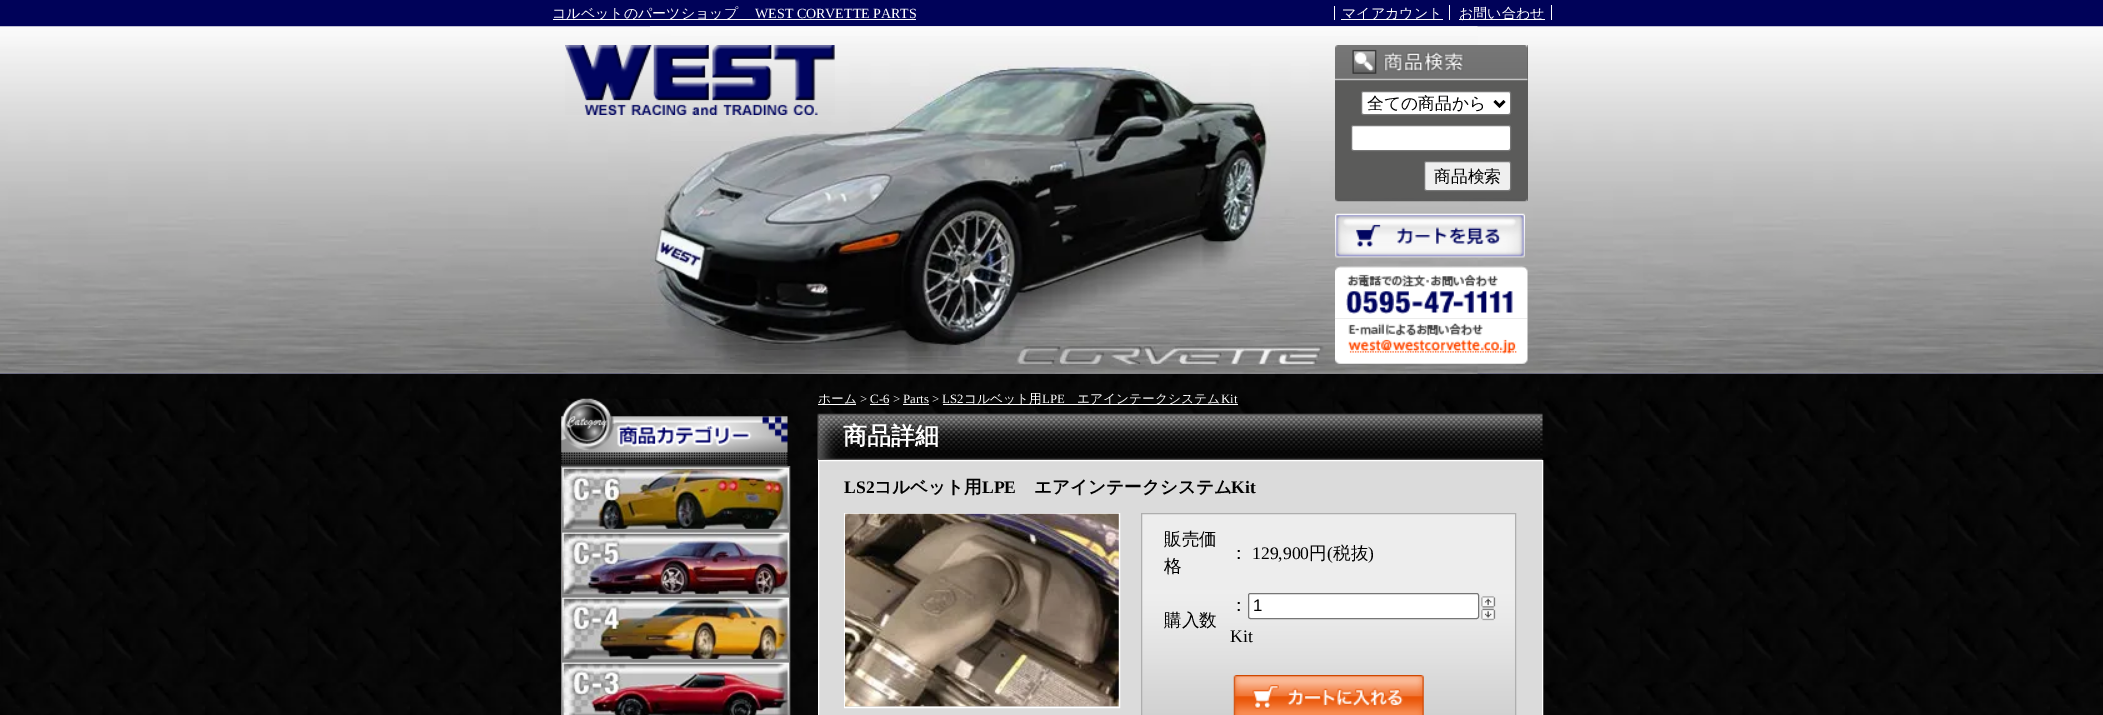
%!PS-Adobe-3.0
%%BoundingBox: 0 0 2103 715
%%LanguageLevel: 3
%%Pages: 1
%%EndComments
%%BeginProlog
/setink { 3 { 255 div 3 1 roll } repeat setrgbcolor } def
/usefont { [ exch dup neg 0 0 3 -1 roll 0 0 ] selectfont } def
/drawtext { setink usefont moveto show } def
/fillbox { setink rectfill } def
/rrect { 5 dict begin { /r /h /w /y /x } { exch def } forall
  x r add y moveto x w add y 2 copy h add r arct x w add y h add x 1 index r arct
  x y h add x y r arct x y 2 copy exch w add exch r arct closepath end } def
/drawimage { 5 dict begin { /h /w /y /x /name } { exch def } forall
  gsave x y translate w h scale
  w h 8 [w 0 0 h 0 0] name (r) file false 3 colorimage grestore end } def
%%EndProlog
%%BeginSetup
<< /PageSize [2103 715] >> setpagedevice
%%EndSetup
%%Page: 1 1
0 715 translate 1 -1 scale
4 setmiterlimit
0 0 2103 715 255 255 255 fillbox
(assets/img1.rgb) 0 374 2103 341 drawimage
0 0 2103 374 0 2 89 fillbox
(assets/img2.rgb) 0 26 2103 348 drawimage
553 19 363 1 255 255 255 fillbox
(コルベットのパーツショップ) 552 18 /WenQuanYiZenHei-Medium 14 255 255 255 drawtext
(WEST CORVETTE PARTS) 755 18 /LiberationSerif-Regular 14 255 255 255 drawtext
1334 6 1 14 255 255 255 fillbox
1341 19 102 1 255 255 255 fillbox
(マイアカウント) 1342 18 /WenQuanYiZenHei-Medium 14 255 255 255 drawtext
1449 5 1 15 255 255 255 fillbox
1459 19 86 1 255 255 255 fillbox
(お問い合わせ) 1459 18 /WenQuanYiZenHei-Medium 14 255 255 255 drawtext
1551 5 1 15 255 255 255 fillbox
(assets/img3.rgb) 650 26 828 348 drawimage
(assets/img4.rgb) 565 45 270 70 drawimage
1335 45 193 156 91 91 90 fillbox
(assets/img5.rgb) 1335 198 193 4 drawimage
(assets/img6.rgb) 1335 45 193 36 drawimage
255 255 255 setink
1361.5 91.5 149 23 2 rrect gsave fill grestore
118 118 118 setink
stroke
0 0 0 setink
2.5 setlinewidth
1494.5 101 moveto 1499.5 106 lineto 1504.5 101 lineto stroke
(全ての商品から) 1367 109 /WenQuanYiZenHei-Medium 16.75 0 0 0 drawtext
255 255 255 setink
1351.5 125.5 159 25 2 rrect gsave fill grestore
118 118 118 setink
1 setlinewidth
stroke
239 239 239 setink
1424.5 161.5 86 29 2 rrect gsave fill grestore
118 118 118 setink
stroke
(商品検索) 1434 182 /WenQuanYiZenHei-Medium 16.75 0 0 0 drawtext
(assets/img7.rgb) 1335 213 190 45 drawimage
(assets/img8.rgb) 1335 266 193 53 drawimage
(assets/img9.rgb) 1335 318 193 46 drawimage
(assets/img11.rgb) 562 467 227 63 drawimage
129 129 129 setink
561.5 466.5 228 64 rectstroke
(assets/img10.rgb) 561 398 227 69 drawimage
(assets/img12.rgb) 562 532 227 63 drawimage
561.5 531.5 228 64 rectstroke
(assets/img13.rgb) 562 597 227 63 drawimage
561.5 596.5 228 64 rectstroke
(assets/img14.rgb) 562 662 227 53 drawimage
561.5 661.5 228 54 rectstroke
818 404 38 1 255 255 255 fillbox
(ホーム) 818 403 /WenQuanYiZenHei-Medium 12.75 255 255 255 drawtext
(> C-6 > Parts > LS2) 860 403 /LiberationSerif-Regular 12.75 255 255 255 drawtext
943 404 295 1 255 255 255 fillbox
(コルベット用) 964 403 /WenQuanYiZenHei-Medium 12.75 255 255 255 drawtext
(LPE) 1042 403 /LiberationSerif-Regular 12.75 255 255 255 drawtext
(エアインテークシステム) 1077 403 /WenQuanYiZenHei-Medium 12.75 255 255 255 drawtext
(Kit) 1221 403 /LiberationSerif-Regular 12.75 255 255 255 drawtext
870 404 19 1 255 255 255 fillbox
903 404 26 1 255 255 255 fillbox
(assets/img15.rgb) 817 413 726 47 drawimage
(商品詳細) 843 444 /WenQuanYiZenHei-Bold 24 255 255 255 drawtext
219 219 219 setink
818.5 460.5 moveto 1542.5 460.5 lineto 1542.5 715.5 lineto 818.5 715.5 lineto closepath gsave fill grestore
255 255 255 setink
stroke
(LS2) 844 493 /LiberationSerif-Bold 17.6 0 0 0 drawtext
(コルベット用) 874 493 /WenQuanYiZenHei-Bold 17.6 0 0 0 drawtext
(LPE) 982 493 /LiberationSerif-Bold 17.6 0 0 0 drawtext
(エアインテークシステム) 1034 493 /WenQuanYiZenHei-Bold 17.6 0 0 0 drawtext
(Kit) 1231 493 /LiberationSerif-Bold 17.6 0 0 0 drawtext
255 255 255 setink
844.5 513.5 275 194 rectstroke
(assets/img16.rgb) 845 513 274 194 drawimage
1142 514 373 76 237 237 237 fillbox
(assets/img17.rgb) 1142 590 375 125 drawimage
174 174 174 setink
1141.5 513.5 374 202 rectstroke
(販売価) 1164 545 /WenQuanYiZenHei-Medium 17.6 0 0 0 drawtext
(格) 1164 572 /WenQuanYiZenHei-Medium 17.6 0 0 0 drawtext
(：) 1230 559 /WenQuanYiZenHei-Medium 17.6 0 0 0 drawtext
(129,900) 1252 559 /LiberationSerif-Regular 17.6 0 0 0 drawtext
(円) 1309 559 /WenQuanYiZenHei-Medium 17.6 0 0 0 drawtext
(\() 1327 559 /LiberationSerif-Regular 17.6 0 0 0 drawtext
(税抜) 1333 559 /WenQuanYiZenHei-Medium 17.6 0 0 0 drawtext
(\)) 1368 559 /LiberationSerif-Regular 17.6 0 0 0 drawtext
(購入数) 1164 626 /WenQuanYiZenHei-Medium 17.6 0 0 0 drawtext
(：) 1230 611 /WenQuanYiZenHei-Medium 17.6 0 0 0 drawtext
255 255 255 setink
1248.5 593.5 230 25 2 rrect gsave fill grestore
118 118 118 setink
stroke
(1) 1253 611 /LiberationSans-Regular 16.75 0 0 0 drawtext
(assets/img18.rgb) 1481 596 15 12 drawimage
(assets/img19.rgb) 1481 608 15 13 drawimage
(Kit) 1230 642 /LiberationSerif-Regular 17.6 0 0 0 drawtext
(assets/img20.rgb) 1233 675 191 40 drawimage
showpage
%%EOF
